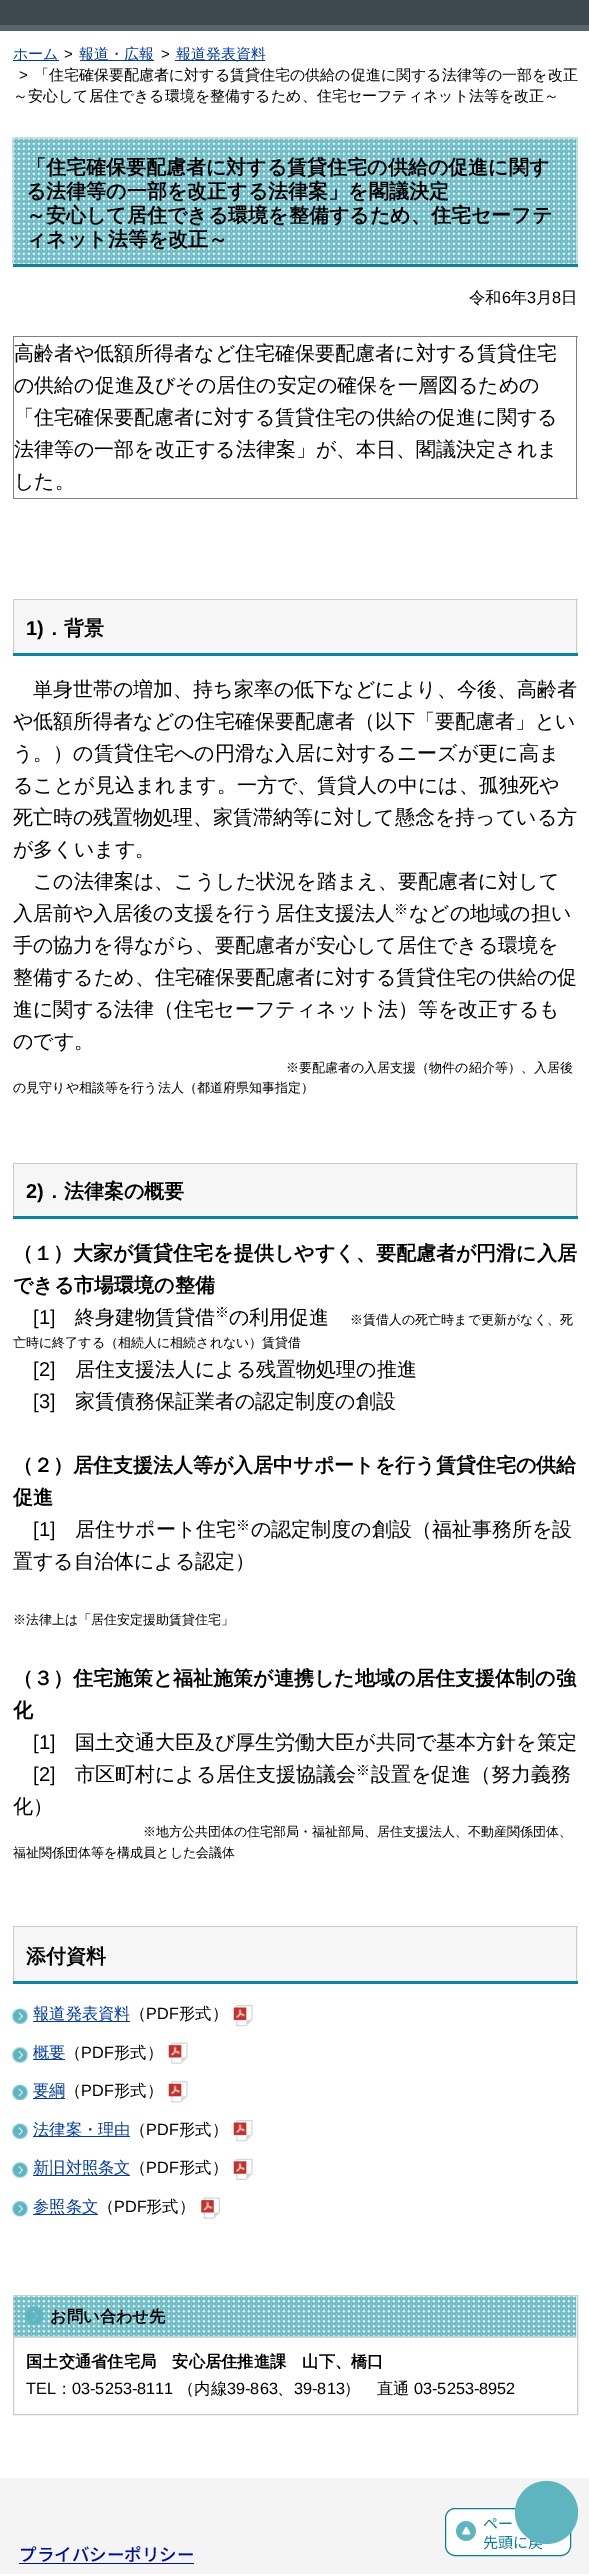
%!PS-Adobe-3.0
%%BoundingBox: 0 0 589 2574
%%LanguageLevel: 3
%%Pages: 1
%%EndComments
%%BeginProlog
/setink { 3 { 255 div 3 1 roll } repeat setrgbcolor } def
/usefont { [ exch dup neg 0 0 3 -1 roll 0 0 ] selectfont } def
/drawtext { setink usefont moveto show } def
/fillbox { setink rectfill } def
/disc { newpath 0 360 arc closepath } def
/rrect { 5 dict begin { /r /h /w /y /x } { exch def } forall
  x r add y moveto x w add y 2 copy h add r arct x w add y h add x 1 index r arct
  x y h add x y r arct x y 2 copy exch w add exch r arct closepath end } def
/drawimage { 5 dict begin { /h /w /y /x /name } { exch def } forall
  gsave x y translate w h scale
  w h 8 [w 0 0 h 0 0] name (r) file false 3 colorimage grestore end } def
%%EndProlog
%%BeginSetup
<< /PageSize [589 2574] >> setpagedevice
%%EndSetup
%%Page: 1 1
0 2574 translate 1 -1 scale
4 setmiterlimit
0 0 589 2574 255 255 255 fillbox
0 0 589 25 60 73 79 fillbox
0 25 589 6 86 100 107 fillbox
13 60 46 1 1 58 162 fillbox
(ホーム) 13 59 /WenQuanYiZenHei-Medium 15 1 58 162 drawtext
(>) 64 59 /LiberationSans-Regular 15 0 0 0 drawtext
80 60 74 1 1 58 162 fillbox
(報道・広報) 79 59 /WenQuanYiZenHei-Medium 15 1 58 162 drawtext
(>) 161 59 /LiberationSans-Regular 15 0 0 0 drawtext
175 60 90 1 1 58 162 fillbox
(報道発表資料) 176 59 /WenQuanYiZenHei-Medium 15 1 58 162 drawtext
(>) 19 80 /LiberationSans-Regular 15 0 0 0 drawtext
(「住宅確保要配慮者に対する賃貸住宅の供給の促進に関する法律等の一部を改正) 34 80 /WenQuanYiZenHei-Medium 15 0 0 0 drawtext
(～安心して居住できる環境を整備するため、住宅セーフティネット法等を改正～) 13 101 /WenQuanYiZenHei-Medium 15 0 0 0 drawtext
13 264 565 3 13 132 157 fillbox
(assets/img1.rgb) 12 137 566 127 drawimage
13 138 565 1 198 220 224 fillbox
576 138 1 126 198 220 224 fillbox
13 138 1 126 198 220 224 fillbox
(「住宅確保要配慮者に対する賃貸住宅の供給の促進に関す) 26 174 /WenQuanYiZenHei-Bold 20 0 0 0 drawtext
(る法律等の一部を改正する法律案」を閣議決定) 26 198 /WenQuanYiZenHei-Bold 20 0 0 0 drawtext
(～安心して居住できる環境を整備するため、住宅セーフテ) 26 222 /WenQuanYiZenHei-Bold 20 0 0 0 drawtext
(ィネット法等を改正～) 26 246 /WenQuanYiZenHei-Bold 20 0 0 0 drawtext
(令和) 469 303 /WenQuanYiZenHei-Medium 16.25 0 0 0 drawtext
(6) 502 303 /LiberationSans-Regular 16.25 0 0 0 drawtext
(年) 511 303 /WenQuanYiZenHei-Medium 16.25 0 0 0 drawtext
(3) 527 303 /LiberationSans-Regular 16.25 0 0 0 drawtext
(月) 536 303 /WenQuanYiZenHei-Medium 16.25 0 0 0 drawtext
(8) 552 303 /LiberationSans-Regular 16.25 0 0 0 drawtext
(日) 561 303 /WenQuanYiZenHei-Medium 16.25 0 0 0 drawtext
13 336 565 1 128 128 128 fillbox
576 336 1 163 128 128 128 fillbox
13 498 565 1 128 128 128 fillbox
13 336 1 163 128 128 128 fillbox
(高齢者や低額所得者など住宅確保要配慮者に対する賃貸住宅) 14 360 /WenQuanYiZenHei-Medium 20 0 0 0 drawtext
(の供給の促進及びその居住の安定の確保を一層図るための) 14 392 /WenQuanYiZenHei-Medium 20 0 0 0 drawtext
(「住宅確保要配慮者に対する賃貸住宅の供給の促進に関する) 14 424 /WenQuanYiZenHei-Medium 20 0 0 0 drawtext
(法律等の一部を改正する法律案」が、本日、閣議決定されま) 14 456 /WenQuanYiZenHei-Medium 20 0 0 0 drawtext
(した。) 14 488 /WenQuanYiZenHei-Medium 20 0 0 0 drawtext
13 653 565 3 13 132 157 fillbox
14 600 564 53 246 246 246 fillbox
13 599 565 1 204 204 204 fillbox
576 599 1 54 204 204 204 fillbox
13 599 1 54 204 204 204 fillbox
(1\)) 26 635 /LiberationSans-Bold 20 0 0 0 drawtext
(．背景) 44 635 /WenQuanYiZenHei-Bold 20 0 0 0 drawtext
(単身世帯の増加、持ち家率の低下などにより、今後、高齢者) 33 696 /WenQuanYiZenHei-Medium 20 0 0 0 drawtext
(や低額所得者などの住宅確保要配慮者（以下「要配慮者」とい) 13 728 /WenQuanYiZenHei-Medium 20 0 0 0 drawtext
(う。）の賃貸住宅への円滑な入居に対するニーズが更に高ま) 13 760 /WenQuanYiZenHei-Medium 20 0 0 0 drawtext
(ることが見込まれます。一方で、賃貸人の中には、孤独死や) 13 792 /WenQuanYiZenHei-Medium 20 0 0 0 drawtext
(死亡時の残置物処理、家賃滞納等に対して懸念を持っている方) 13 824 /WenQuanYiZenHei-Medium 20 0 0 0 drawtext
(が多くいます。) 13 856 /WenQuanYiZenHei-Medium 20 0 0 0 drawtext
(この法律案は、こうした状況を踏まえ、要配慮者に対して) 33 888 /WenQuanYiZenHei-Medium 20 0 0 0 drawtext
(入居前や入居後の支援を行う居住支援法人) 13 920 /WenQuanYiZenHei-Medium 20 0 0 0 drawtext
(※) 394 914 /WenQuanYiZenHei-Medium 14 0 0 0 drawtext
(などの地域の担い) 409 920 /WenQuanYiZenHei-Medium 20 0 0 0 drawtext
(手の協力を得ながら、要配慮者が安心して居住できる環境を) 13 952 /WenQuanYiZenHei-Medium 20 0 0 0 drawtext
(整備するため、住宅確保要配慮者に対する賃貸住宅の供給の促) 13 984 /WenQuanYiZenHei-Medium 20 0 0 0 drawtext
(進に関する法律（住宅セーフティネット法）等を改正するも) 13 1016 /WenQuanYiZenHei-Medium 20 0 0 0 drawtext
(のです。) 13 1048 /WenQuanYiZenHei-Medium 20 0 0 0 drawtext
(※要配慮者の入居支援（物件の紹介等）、入居後) 286 1072 /WenQuanYiZenHei-Medium 13 0 0 0 drawtext
(の見守りや相談等を行う法人（都道府県知事指定）) 13 1092 /WenQuanYiZenHei-Medium 13 0 0 0 drawtext
13 1216 565 3 13 132 157 fillbox
14 1164 564 52 246 246 246 fillbox
13 1163 565 1 204 204 204 fillbox
576 1163 1 53 204 204 204 fillbox
13 1163 1 53 204 204 204 fillbox
(2\)) 26 1198 /LiberationSans-Bold 20 0 0 0 drawtext
(．法律案の概要) 44 1198 /WenQuanYiZenHei-Bold 20 0 0 0 drawtext
(（１）大家が賃貸住宅を提供しやすく、要配慮者が円滑に入居) 13 1260 /WenQuanYiZenHei-Bold 20 0 0 0 drawtext
(できる市場環境の整備) 13 1292 /WenQuanYiZenHei-Bold 20 0 0 0 drawtext
([1]) 33 1324 /LiberationSans-Regular 20 0 0 0 drawtext
(終身建物賃貸借) 75 1324 /WenQuanYiZenHei-Medium 20 0 0 0 drawtext
(※) 215 1317 /WenQuanYiZenHei-Medium 14 0 0 0 drawtext
(の利用促進) 229 1324 /WenQuanYiZenHei-Medium 20 0 0 0 drawtext
(※賃借人の死亡時まで更新がなく、死) 350 1324 /WenQuanYiZenHei-Medium 13 0 0 0 drawtext
(亡時に終了する（相続人に相続されない）賃貸借) 13 1347 /WenQuanYiZenHei-Medium 13 0 0 0 drawtext
([2]) 33 1376 /LiberationSans-Regular 20 0 0 0 drawtext
(居住支援法人による残置物処理の推進) 75 1376 /WenQuanYiZenHei-Medium 20 0 0 0 drawtext
([3]) 33 1408 /LiberationSans-Regular 20 0 0 0 drawtext
(家賃債務保証業者の認定制度の創設) 75 1408 /WenQuanYiZenHei-Medium 20 0 0 0 drawtext
(（２）居住支援法人等が入居中サポートを行う賃貸住宅の供給) 13 1472 /WenQuanYiZenHei-Bold 20 0 0 0 drawtext
(促進) 13 1504 /WenQuanYiZenHei-Bold 20 0 0 0 drawtext
([1]) 33 1536 /LiberationSans-Regular 20 0 0 0 drawtext
(居住サポート住宅) 75 1536 /WenQuanYiZenHei-Medium 20 0 0 0 drawtext
(※) 236 1530 /WenQuanYiZenHei-Medium 14 0 0 0 drawtext
(の認定制度の創設（福祉事務所を設) 251 1536 /WenQuanYiZenHei-Medium 20 0 0 0 drawtext
(置する自治体による認定）) 13 1568 /WenQuanYiZenHei-Medium 20 0 0 0 drawtext
(※法律上は「居住安定援助賃貸住宅」) 13 1624 /WenQuanYiZenHei-Medium 13 0 0 0 drawtext
(（３）住宅施策と福祉施策が連携した地域の居住支援体制の強) 13 1685 /WenQuanYiZenHei-Bold 20 0 0 0 drawtext
(化) 13 1717 /WenQuanYiZenHei-Bold 20 0 0 0 drawtext
([1]) 33 1749 /LiberationSans-Regular 20 0 0 0 drawtext
(国土交通大臣及び厚生労働大臣が共同で基本方針を策定) 75 1749 /WenQuanYiZenHei-Medium 20 0 0 0 drawtext
([2]) 33 1781 /LiberationSans-Regular 20 0 0 0 drawtext
(市区町村による居住支援協議会) 75 1781 /WenQuanYiZenHei-Medium 20 0 0 0 drawtext
(※) 356 1775 /WenQuanYiZenHei-Medium 14 0 0 0 drawtext
(設置を促進（努力義務) 371 1781 /WenQuanYiZenHei-Medium 20 0 0 0 drawtext
(化）) 13 1813 /WenQuanYiZenHei-Medium 20 0 0 0 drawtext
(※地方公共団体の住宅部局・福祉部局、居住支援法人、不動産関係団体、) 143 1836 /WenQuanYiZenHei-Medium 13 0 0 0 drawtext
(福祉関係団体等を構成員とした会議体) 13 1857 /WenQuanYiZenHei-Medium 13 0 0 0 drawtext
13 1981 565 3 13 132 157 fillbox
14 1927 564 54 246 246 246 fillbox
13 1926 565 1 204 204 204 fillbox
576 1926 1 55 204 204 204 fillbox
13 1926 1 55 204 204 204 fillbox
(添付資料) 26 1963 /WenQuanYiZenHei-Bold 20 0 0 0 drawtext
(assets/img2.rgb) 12 2008 16 16 drawimage
33 2021 97 1 1 58 162 fillbox
(報道発表資料) 33 2019 /WenQuanYiZenHei-Medium 16.25 1 58 162 drawtext
(（) 130 2019 /WenQuanYiZenHei-Medium 16.25 0 0 0 drawtext
(PDF) 146 2019 /LiberationSans-Regular 16.25 0 0 0 drawtext
(形式）) 179 2019 /WenQuanYiZenHei-Medium 16.25 0 0 0 drawtext
(assets/img3.rgb) 233 2005 20 22 drawimage
(assets/img4.rgb) 12 2047 16 16 drawimage
33 2059 32 1 1 58 162 fillbox
(概要) 33 2058 /WenQuanYiZenHei-Medium 16.25 1 58 162 drawtext
(（) 65 2058 /WenQuanYiZenHei-Medium 16.25 0 0 0 drawtext
(PDF) 81 2058 /LiberationSans-Regular 16.25 0 0 0 drawtext
(形式）) 114 2058 /WenQuanYiZenHei-Medium 16.25 0 0 0 drawtext
(assets/img5.rgb) 168 2042 20 22 drawimage
(assets/img6.rgb) 12 2085 16 15 drawimage
33 2098 32 1 1 58 162 fillbox
(要綱) 33 2096 /WenQuanYiZenHei-Medium 16.25 1 58 162 drawtext
(（) 65 2096 /WenQuanYiZenHei-Medium 16.25 0 0 0 drawtext
(PDF) 81 2096 /LiberationSans-Regular 16.25 0 0 0 drawtext
(形式）) 114 2096 /WenQuanYiZenHei-Medium 16.25 0 0 0 drawtext
(assets/img7.rgb) 168 2081 20 22 drawimage
(assets/img2.rgb) 12 2123 16 16 drawimage
33 2136 97 1 1 58 162 fillbox
(法律案・理由) 33 2135 /WenQuanYiZenHei-Medium 16.25 1 58 162 drawtext
(（) 130 2135 /WenQuanYiZenHei-Medium 16.25 0 0 0 drawtext
(PDF) 146 2135 /LiberationSans-Regular 16.25 0 0 0 drawtext
(形式）) 179 2135 /WenQuanYiZenHei-Medium 16.25 0 0 0 drawtext
(assets/img3.rgb) 233 2120 20 22 drawimage
(assets/img4.rgb) 12 2162 16 16 drawimage
33 2175 97 1 1 58 162 fillbox
(新旧対照条文) 33 2173 /WenQuanYiZenHei-Medium 16.25 1 58 162 drawtext
(（) 130 2173 /WenQuanYiZenHei-Medium 16.25 0 0 0 drawtext
(PDF) 146 2173 /LiberationSans-Regular 16.25 0 0 0 drawtext
(形式）) 179 2173 /WenQuanYiZenHei-Medium 16.25 0 0 0 drawtext
(assets/img8.rgb) 233 2158 20 22 drawimage
(assets/img9.rgb) 12 2201 16 16 drawimage
33 2214 65 1 1 58 162 fillbox
(参照条文) 33 2212 /WenQuanYiZenHei-Medium 16.25 1 58 162 drawtext
(（) 98 2212 /WenQuanYiZenHei-Medium 16.25 0 0 0 drawtext
(PDF) 114 2212 /LiberationSans-Regular 16.25 0 0 0 drawtext
(形式）) 146 2212 /WenQuanYiZenHei-Medium 16.25 0 0 0 drawtext
(assets/img10.rgb) 201 2197 19 22 drawimage
204 204 204 setink
13.5 2295.5 564 119 rectstroke
(assets/img11.rgb) 13 2296 564 42 drawimage
14 2336 562 1 204 204 204 fillbox
(assets/img12.rgb) 25 2306 19 19 drawimage
(お問い合わせ先) 50 2322 /WenQuanYiZenHei-Bold 16.25 0 0 0 drawtext
(国土交通省住宅局　安心居住推進課　山下、橋口) 26 2367 /WenQuanYiZenHei-Bold 16.25 0 0 0 drawtext
(TEL) 26 2394 /LiberationSans-Regular 16.25 0 0 0 drawtext
(：) 56 2394 /WenQuanYiZenHei-Medium 16.25 0 0 0 drawtext
(03-5253-8111) 72 2394 /LiberationSans-Regular 16.25 0 0 0 drawtext
(（内線) 178 2394 /WenQuanYiZenHei-Medium 16.25 0 0 0 drawtext
(39-863) 227 2394 /LiberationSans-Regular 16.25 0 0 0 drawtext
(、) 277 2394 /WenQuanYiZenHei-Medium 16.25 0 0 0 drawtext
(39-813) 294 2394 /LiberationSans-Regular 16.25 0 0 0 drawtext
(）　直通) 344 2394 /WenQuanYiZenHei-Medium 16.25 0 0 0 drawtext
(03-5253-8952) 414 2394 /LiberationSans-Regular 16.25 0 0 0 drawtext
0 2478 589 96 244 244 244 fillbox
255 255 255 setink
445 2508 126 48 10 rrect fill
(assets/img13.rgb) 456 2521 20 20 drawimage
11 127 150 setink
445.5 2508.5 125 47 9.5 rrect stroke
(先頭に戻) 483 2548 /NotoSansJP-Regular 15 11 127 150 drawtext
94 181 192 setink
546.5 2512.5 31.5 disc fill
(ペー) 483 2529 /NotoSansJP-Regular 15 11 127 150 drawtext
(プライバシーポリシー) 19 2561 /NotoSansJP-Medium 17.5 0 17 143 drawtext
19 2563 175 1 0 17 143 fillbox
showpage
%%EOF
